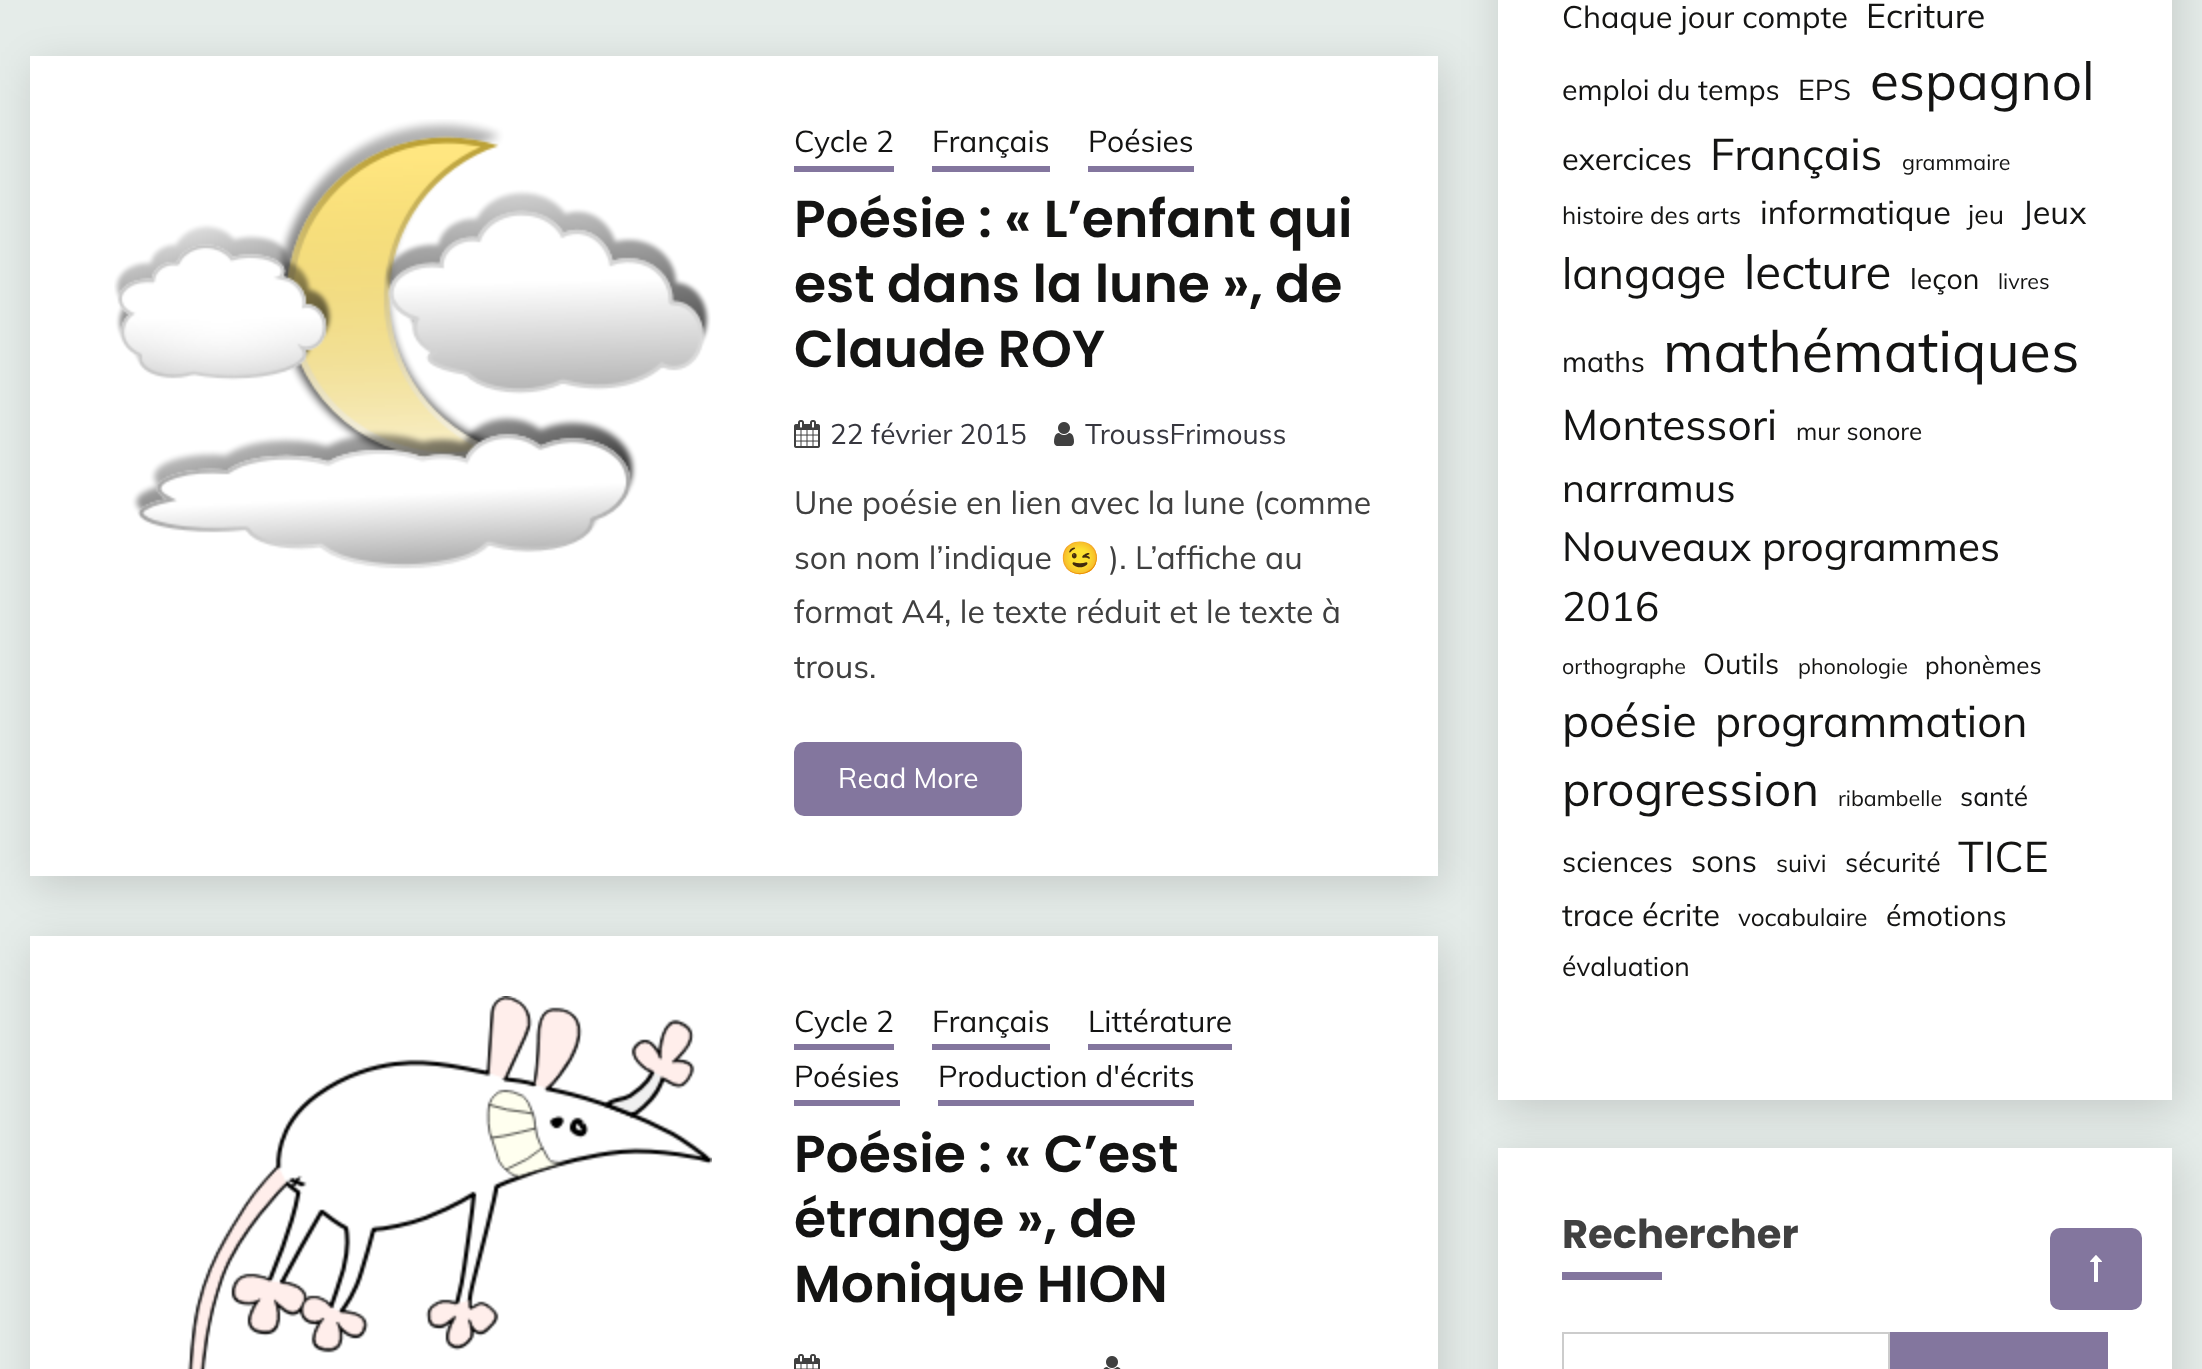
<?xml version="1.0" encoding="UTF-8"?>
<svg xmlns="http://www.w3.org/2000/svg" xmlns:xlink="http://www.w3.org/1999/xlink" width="2202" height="1369">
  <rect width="100%" height="100%" fill="#e5ece9" />
  <rect x="34" y="66" width="1408" height="820" fill="#000000" fill-opacity="0.14" filter="blur(20px)" />
  <rect x="30" y="56" width="1408" height="820" fill="#ffffff" />
  <image x="114" y="119" width="597" height="450" xlink:href="image1.png" />
  <rect x="794" y="166" width="100" height="6" fill="#83769e" />
  <rect x="932" y="166" width="118" height="6" fill="#83769e" />
  <rect x="1088" y="166" width="106" height="6" fill="#83769e" />
  <image x="794" y="420" width="26" height="28" xlink:href="image2.png" />
  <image x="1054" y="422" width="20" height="24" xlink:href="image3.png" />
  <rect x="794" y="742" width="228" height="74" rx="10" fill="#83769e" />
  <rect x="34" y="946" width="1408" height="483" fill="#000000" fill-opacity="0.14" filter="blur(20px)" />
  <rect x="30" y="936" width="1408" height="433" fill="#ffffff" />
  <image x="187" y="996" width="525" height="373" xlink:href="image4.png" />
  <rect x="794" y="1044" width="100" height="6" fill="#83769e" />
  <rect x="932" y="1044" width="118" height="6" fill="#83769e" />
  <rect x="1088" y="1044" width="144" height="6" fill="#83769e" />
  <rect x="794" y="1100" width="106" height="6" fill="#83769e" />
  <rect x="938" y="1100" width="256" height="6" fill="#83769e" />
  <image x="794" y="1354" width="26" height="15" xlink:href="image5.png" />
  <image x="1103" y="1356" width="18" height="13" xlink:href="image6.png" />
  <rect x="1502" y="-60" width="674" height="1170" fill="#000000" fill-opacity="0.14" filter="blur(20px)" />
  <rect x="1498" width="674" height="1100" fill="#ffffff" />
  <rect x="1502" y="1158" width="674" height="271" fill="#000000" fill-opacity="0.14" filter="blur(20px)" />
  <rect x="1498" y="1148" width="674" height="221" fill="#ffffff" />
  <rect x="1562" y="1272" width="100" height="8" fill="#83769e" />
  <rect x="1563" y="1333" width="326" height="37" fill="none" stroke="#cccccc" stroke-width="2" />
  <rect x="1890" y="1332" width="218" height="37" fill="#83769e" />
  <rect x="2050" y="1228" width="92" height="82" rx="10" fill="#83769e" />
  <image x="2090" y="1255" width="12" height="27" xlink:href="image7.png" />
  <text x="794" y="152" style="font-family: Muli; font-size: 30px; fill: #141413">Cycle 2</text>
  <text x="932" y="152" style="font-family: Muli; font-size: 30px; fill: #141413">Français</text>
  <text x="1088" y="152" style="font-family: Muli; font-size: 30px; fill: #141413">Poésies</text>
  <text x="794" y="237" style="font-family: Poppins; font-size: 52px; font-weight: 600; fill: #141413">Poésie : « L’enfant qui</text>
  <text x="794" y="302" style="font-family: Poppins; font-size: 52px; font-weight: 600; fill: #141413">est dans la lune », de</text>
  <text x="794" y="367" style="font-family: Poppins; font-size: 52px; font-weight: 600; fill: #141413">Claude ROY</text>
  <text x="830" y="444" style="font-family: Muli; font-size: 28px; fill: #37373f">22 février 2015</text>
  <text x="1085" y="444" style="font-family: Muli; font-size: 28px; fill: #37373f">TroussFrimouss</text>
  <text x="794" y="514" style="font-family: Muli; font-size: 32px; fill: #404040">Une poésie en lien avec la lune (comme</text>
  <text x="794" y="569" style="font-family: Muli; font-size: 32px; fill: #404040">son nom l’indique</text>
  <text x="1060" y="569" style="font-family: Noto Color Emoji; font-size: 32px; fill: #404040">😉</text>
  <text x="1109" y="569" style="font-family: Muli; font-size: 32px; fill: #404040">). L’affiche au</text>
  <text x="794" y="623" style="font-family: Muli; font-size: 32px; fill: #404040">format A4, le texte réduit et le texte à</text>
  <text x="794" y="678" style="font-family: Muli; font-size: 32px; fill: #404040">trous.</text>
  <text x="838" y="788" style="font-family: Muli; font-size: 28px; fill: #ffffff">Read More</text>
  <text x="794" y="1032" style="font-family: Muli; font-size: 30px; fill: #141413">Cycle 2</text>
  <text x="932" y="1032" style="font-family: Muli; font-size: 30px; fill: #141413">Français</text>
  <text x="1088" y="1032" style="font-family: Muli; font-size: 30px; fill: #141413">Littérature</text>
  <text x="794" y="1087" style="font-family: Muli; font-size: 30px; fill: #141413">Poésies</text>
  <text x="938" y="1087" style="font-family: Muli; font-size: 30px; fill: #141413">Production d'écrits</text>
  <text x="794" y="1172" style="font-family: Poppins; font-size: 52px; font-weight: 600; fill: #141413">Poésie : « C’est</text>
  <text x="794" y="1237" style="font-family: Poppins; font-size: 52px; font-weight: 600; fill: #141413">étrange », de</text>
  <text x="794" y="1302" style="font-family: Poppins; font-size: 52px; font-weight: 600; fill: #141413">Monique HION</text>
  <text x="1562" y="28" style="font-family: Muli; font-size: 30.75px; fill: #141413">Chaque jour compte</text>
  <text x="1866" y="28" style="font-family: Muli; font-size: 34px; fill: #141413">Ecriture</text>
  <text x="1562" y="100" style="font-family: Muli; font-size: 28.5px; fill: #141413">emploi du temps</text>
  <text x="1798" y="100" style="font-family: Muli; font-size: 28.5px; fill: #141413">EPS</text>
  <text x="1870" y="100" style="font-family: Muli; font-size: 53px; fill: #141413">espagnol</text>
  <text x="1562" y="170" style="font-family: Muli; font-size: 30.75px; fill: #141413">exercices</text>
  <text x="1710" y="170" style="font-family: Muli; font-size: 44px; fill: #141413">Français</text>
  <text x="1902" y="170" style="font-family: Muli; font-size: 21.5px; fill: #141413">grammaire</text>
  <text x="1562" y="224" style="font-family: Muli; font-size: 24.25px; fill: #141413">histoire des arts</text>
  <text x="1760" y="224" style="font-family: Muli; font-size: 32.5px; fill: #141413">informatique</text>
  <text x="1968" y="224" style="font-family: Muli; font-size: 26.5px; fill: #141413">jeu</text>
  <text x="2022" y="224" style="font-family: Muli; font-size: 32.5px; fill: #141413">Jeux</text>
  <text x="1562" y="289" style="font-family: Muli; font-size: 43.5px; fill: #141413">langage</text>
  <text x="1744" y="289" style="font-family: Muli; font-size: 47.5px; fill: #141413">lecture</text>
  <text x="1910" y="289" style="font-family: Muli; font-size: 28.5px; fill: #141413">leçon</text>
  <text x="1998" y="289" style="font-family: Muli; font-size: 21.5px; fill: #141413">livres</text>
  <text x="1562" y="372" style="font-family: Muli; font-size: 28.5px; fill: #141413">maths</text>
  <text x="1663" y="372" style="font-family: Muli; font-size: 57.5px; fill: #141413">mathématiques</text>
  <text x="1562" y="440" style="font-family: Muli; font-size: 42.5px; fill: #141413">Montessori</text>
  <text x="1796" y="440" style="font-family: Muli; font-size: 24.25px; fill: #141413">mur sonore</text>
  <text x="1562" y="502" style="font-family: Muli; font-size: 39px; fill: #141413">narramus</text>
  <text x="1562" y="561" style="font-family: Muli; font-size: 40.5px; fill: #141413">Nouveaux programmes</text>
  <text x="1562" y="621" style="font-family: Muli; font-size: 40.5px; fill: #141413">2016</text>
  <text x="1562" y="674" style="font-family: Muli; font-size: 21.5px; fill: #141413">orthographe</text>
  <text x="1703" y="674" style="font-family: Muli; font-size: 28.5px; fill: #141413">Outils</text>
  <text x="1798" y="674" style="font-family: Muli; font-size: 21.5px; fill: #141413">phonologie</text>
  <text x="1925" y="674" style="font-family: Muli; font-size: 24.25px; fill: #141413">phonèmes</text>
  <text x="1562" y="737" style="font-family: Muli; font-size: 45px; fill: #141413">poésie</text>
  <text x="1715" y="737" style="font-family: Muli; font-size: 43.5px; fill: #141413">programmation</text>
  <text x="1562" y="806" style="font-family: Muli; font-size: 47.5px; fill: #141413">progression</text>
  <text x="1838" y="806" style="font-family: Muli; font-size: 21.5px; fill: #141413">ribambelle</text>
  <text x="1960" y="806" style="font-family: Muli; font-size: 26.5px; fill: #141413">santé</text>
  <text x="1562" y="872" style="font-family: Muli; font-size: 28.5px; fill: #141413">sciences</text>
  <text x="1691" y="872" style="font-family: Muli; font-size: 30.75px; fill: #141413">sons</text>
  <text x="1776" y="872" style="font-family: Muli; font-size: 24.25px; fill: #141413">suivi</text>
  <text x="1845" y="872" style="font-family: Muli; font-size: 26.5px; fill: #141413">sécurité</text>
  <text x="1958" y="872" style="font-family: Muli; font-size: 42.5px; fill: #141413">TICE</text>
  <text x="1562" y="926" style="font-family: Muli; font-size: 30.75px; fill: #141413">trace écrite</text>
  <text x="1738" y="926" style="font-family: Muli; font-size: 24.25px; fill: #141413">vocabulaire</text>
  <text x="1886" y="926" style="font-family: Muli; font-size: 28.5px; fill: #141413">émotions</text>
  <text x="1562" y="976" style="font-family: Muli; font-size: 26.5px; fill: #141413">évaluation</text>
  <text x="1562" y="1248" style="font-family: Poppins; font-size: 40px; font-weight: bold; fill: #404040">Rechercher</text>
</svg>
